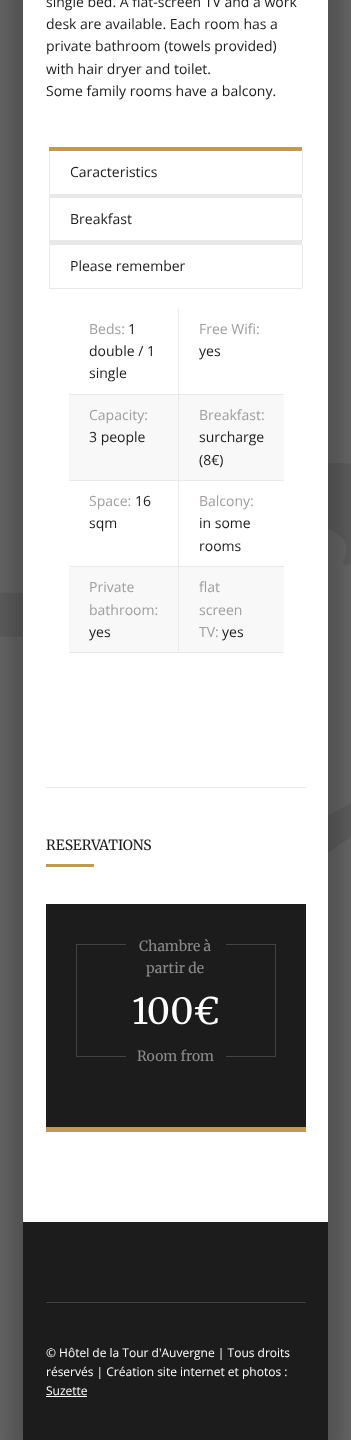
<?xml version="1.0" encoding="UTF-8"?>
<svg xmlns="http://www.w3.org/2000/svg" xmlns:xlink="http://www.w3.org/1999/xlink" width="351" height="1440">
  <rect width="100%" height="100%" fill="#666666" />
  <image x="0" y="463" width="351" height="390" xlink:href="image1.png" />
  <rect x="8" y="-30" width="335" height="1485" fill="#000000" fill-opacity="0.2" filter="blur(10px)" />
  <rect x="23" width="305" height="1222" fill="#ffffff" />
  <rect x="49" y="147" width="253" height="4" fill="#bf9958" />
  <rect x="302" y="151" width="1" height="42" fill="#e8e8e8" />
  <rect x="49" y="151" width="1" height="42" fill="#e8e8e8" />
  <rect x="49" y="194" width="253" height="4" fill="#e8e8e8" />
  <rect x="49" y="240" width="253" height="5" fill="#e8e8e8" />
  <rect x="302" y="198" width="1" height="42" fill="#e8e8e8" />
  <rect x="49" y="198" width="1" height="42" fill="#e8e8e8" />
  <rect x="49" y="288" width="253" height="1" fill="#e8e8e8" />
  <rect x="302" y="245" width="1" height="43" fill="#e8e8e8" />
  <rect x="49" y="245" width="1" height="43" fill="#e8e8e8" />
  <rect x="178" y="309" width="1" height="86" fill="#e9e9e9" />
  <rect x="69" y="394" width="215" height="1" fill="#e9e9e9" />
  <rect x="69" y="395" width="215" height="85" fill="#f8f8f8" />
  <rect x="178" y="395" width="1" height="172" fill="#e9e9e9" />
  <rect x="69" y="480" width="215" height="1" fill="#e9e9e9" />
  <rect x="69" y="566" width="215" height="1" fill="#e9e9e9" />
  <rect x="69" y="567" width="215" height="85" fill="#f8f8f8" />
  <rect x="178" y="567" width="1" height="86" fill="#e9e9e9" />
  <rect x="69" y="652" width="215" height="1" fill="#e9e9e9" />
  <rect x="46" y="787" width="260" height="1" fill="#e8e8e8" />
  <rect x="46" y="864" width="48" height="3" fill="#bf9958" />
  <rect x="46" y="904" width="260" height="223" fill="#1c1c1c" />
  <rect x="46" y="1127" width="260" height="5" fill="#bf9958" />
  <rect x="76.5" y="944.5" width="199" height="112" fill="none" stroke="#424242" />
  <rect x="126" y="944" width="100" height="1" fill="#1c1c1c" />
  <rect x="126" y="1056" width="100" height="1" fill="#1c1c1c" />
  <rect x="23" y="1222" width="305" height="218" fill="#1c1c1c" />
  <rect x="46" y="1302" width="260" height="1" fill="#424242" />
  <rect x="46" y="1396" width="41" height="1" fill="#ffffff" />
  <text x="46" y="7" style="font-family: Open Sans; font-size: 14px; fill: #1c1c1c">single bed. A flat-screen TV and a work</text>
  <text x="46" y="29" style="font-family: Open Sans; font-size: 14px; fill: #1c1c1c">desk are available. Each room has a</text>
  <text x="46" y="51" style="font-family: Open Sans; font-size: 14px; fill: #1c1c1c">private bathroom (towels provided)</text>
  <text x="46" y="74" style="font-family: Open Sans; font-size: 14px; fill: #1c1c1c">with hair dryer and toilet.</text>
  <text x="46" y="96" style="font-family: Open Sans; font-size: 14px; fill: #1c1c1c">Some family rooms have a balcony.</text>
  <text x="70" y="177" style="font-family: Open Sans; font-size: 14px; fill: #1c1c1c">Caracteristics</text>
  <text x="70" y="224" style="font-family: Open Sans; font-size: 14px; fill: #1c1c1c">Breakfast</text>
  <text x="70" y="271" style="font-family: Open Sans; font-size: 14px; fill: #1c1c1c">Please remember</text>
  <text x="89" y="334" style="font-family: Open Sans; font-size: 14px; fill: #a09d9d">Beds:</text>
  <text x="128" y="334" style="font-family: Open Sans; font-size: 14px; fill: #1c1c1c">1</text>
  <text x="89" y="356" style="font-family: Open Sans; font-size: 14px; fill: #1c1c1c">double / 1</text>
  <text x="89" y="378" style="font-family: Open Sans; font-size: 14px; fill: #1c1c1c">single</text>
  <text x="199" y="334" style="font-family: Open Sans; font-size: 14px; fill: #a09d9d">Free Wifi:</text>
  <text x="199" y="356" style="font-family: Open Sans; font-size: 14px; fill: #1c1c1c">yes</text>
  <text x="89" y="420" style="font-family: Open Sans; font-size: 14px; fill: #a09d9d">Capacity:</text>
  <text x="89" y="442" style="font-family: Open Sans; font-size: 14px; fill: #1c1c1c">3 people</text>
  <text x="199" y="420" style="font-family: Open Sans; font-size: 14px; fill: #a09d9d">Breakfast:</text>
  <text x="199" y="442" style="font-family: Open Sans; font-size: 14px; fill: #1c1c1c">surcharge</text>
  <text x="199" y="465" style="font-family: Open Sans; font-size: 14px; fill: #1c1c1c">(8€)</text>
  <text x="89" y="506" style="font-family: Open Sans; font-size: 14px; fill: #a09d9d">Space:</text>
  <text x="135" y="506" style="font-family: Open Sans; font-size: 14px; fill: #1c1c1c">16</text>
  <text x="89" y="528" style="font-family: Open Sans; font-size: 14px; fill: #1c1c1c">sqm</text>
  <text x="199" y="506" style="font-family: Open Sans; font-size: 14px; fill: #a09d9d">Balcony:</text>
  <text x="199" y="528" style="font-family: Open Sans; font-size: 14px; fill: #1c1c1c">in some</text>
  <text x="199" y="551" style="font-family: Open Sans; font-size: 14px; fill: #1c1c1c">rooms</text>
  <text x="89" y="592" style="font-family: Open Sans; font-size: 14px; fill: #a09d9d">Private</text>
  <text x="89" y="615" style="font-family: Open Sans; font-size: 14px; fill: #a09d9d">bathroom:</text>
  <text x="89" y="637" style="font-family: Open Sans; font-size: 14px; fill: #1c1c1c">yes</text>
  <text x="199" y="592" style="font-family: Open Sans; font-size: 14px; fill: #a09d9d">flat</text>
  <text x="199" y="615" style="font-family: Open Sans; font-size: 14px; fill: #a09d9d">screen</text>
  <text x="199" y="637" style="font-family: Open Sans; font-size: 14px; fill: #a09d9d">TV:</text>
  <text x="222" y="637" style="font-family: Open Sans; font-size: 14px; fill: #1c1c1c">yes</text>
  <text x="46" y="850" style="font-family: Merriweather; font-size: 14px; fill: #1c1c1c">RESERVATIONS</text>
  <text x="139" y="951" style="font-family: Merriweather; font-size: 14px; fill: #8b8b8b">Chambre à</text>
  <text x="146" y="973" style="font-family: Merriweather; font-size: 14px; fill: #8b8b8b">partir de</text>
  <text x="132" y="1024" style="font-family: Merriweather; font-size: 36px; fill: #ffffff">100€</text>
  <text x="137" y="1061" style="font-family: Merriweather; font-size: 14px; fill: #8b8b8b">Room from</text>
  <text x="46" y="1357" style="font-family: Open Sans; font-size: 12px; fill: #ffffff">© Hôtel de la Tour d'Auvergne | Tous droits</text>
  <text x="46" y="1376" style="font-family: Open Sans; font-size: 12px; fill: #ffffff">réservés | Création site internet et photos :</text>
  <text x="46" y="1395" style="font-family: Open Sans; font-size: 12px; fill: #ffffff">Suzette</text>
</svg>
